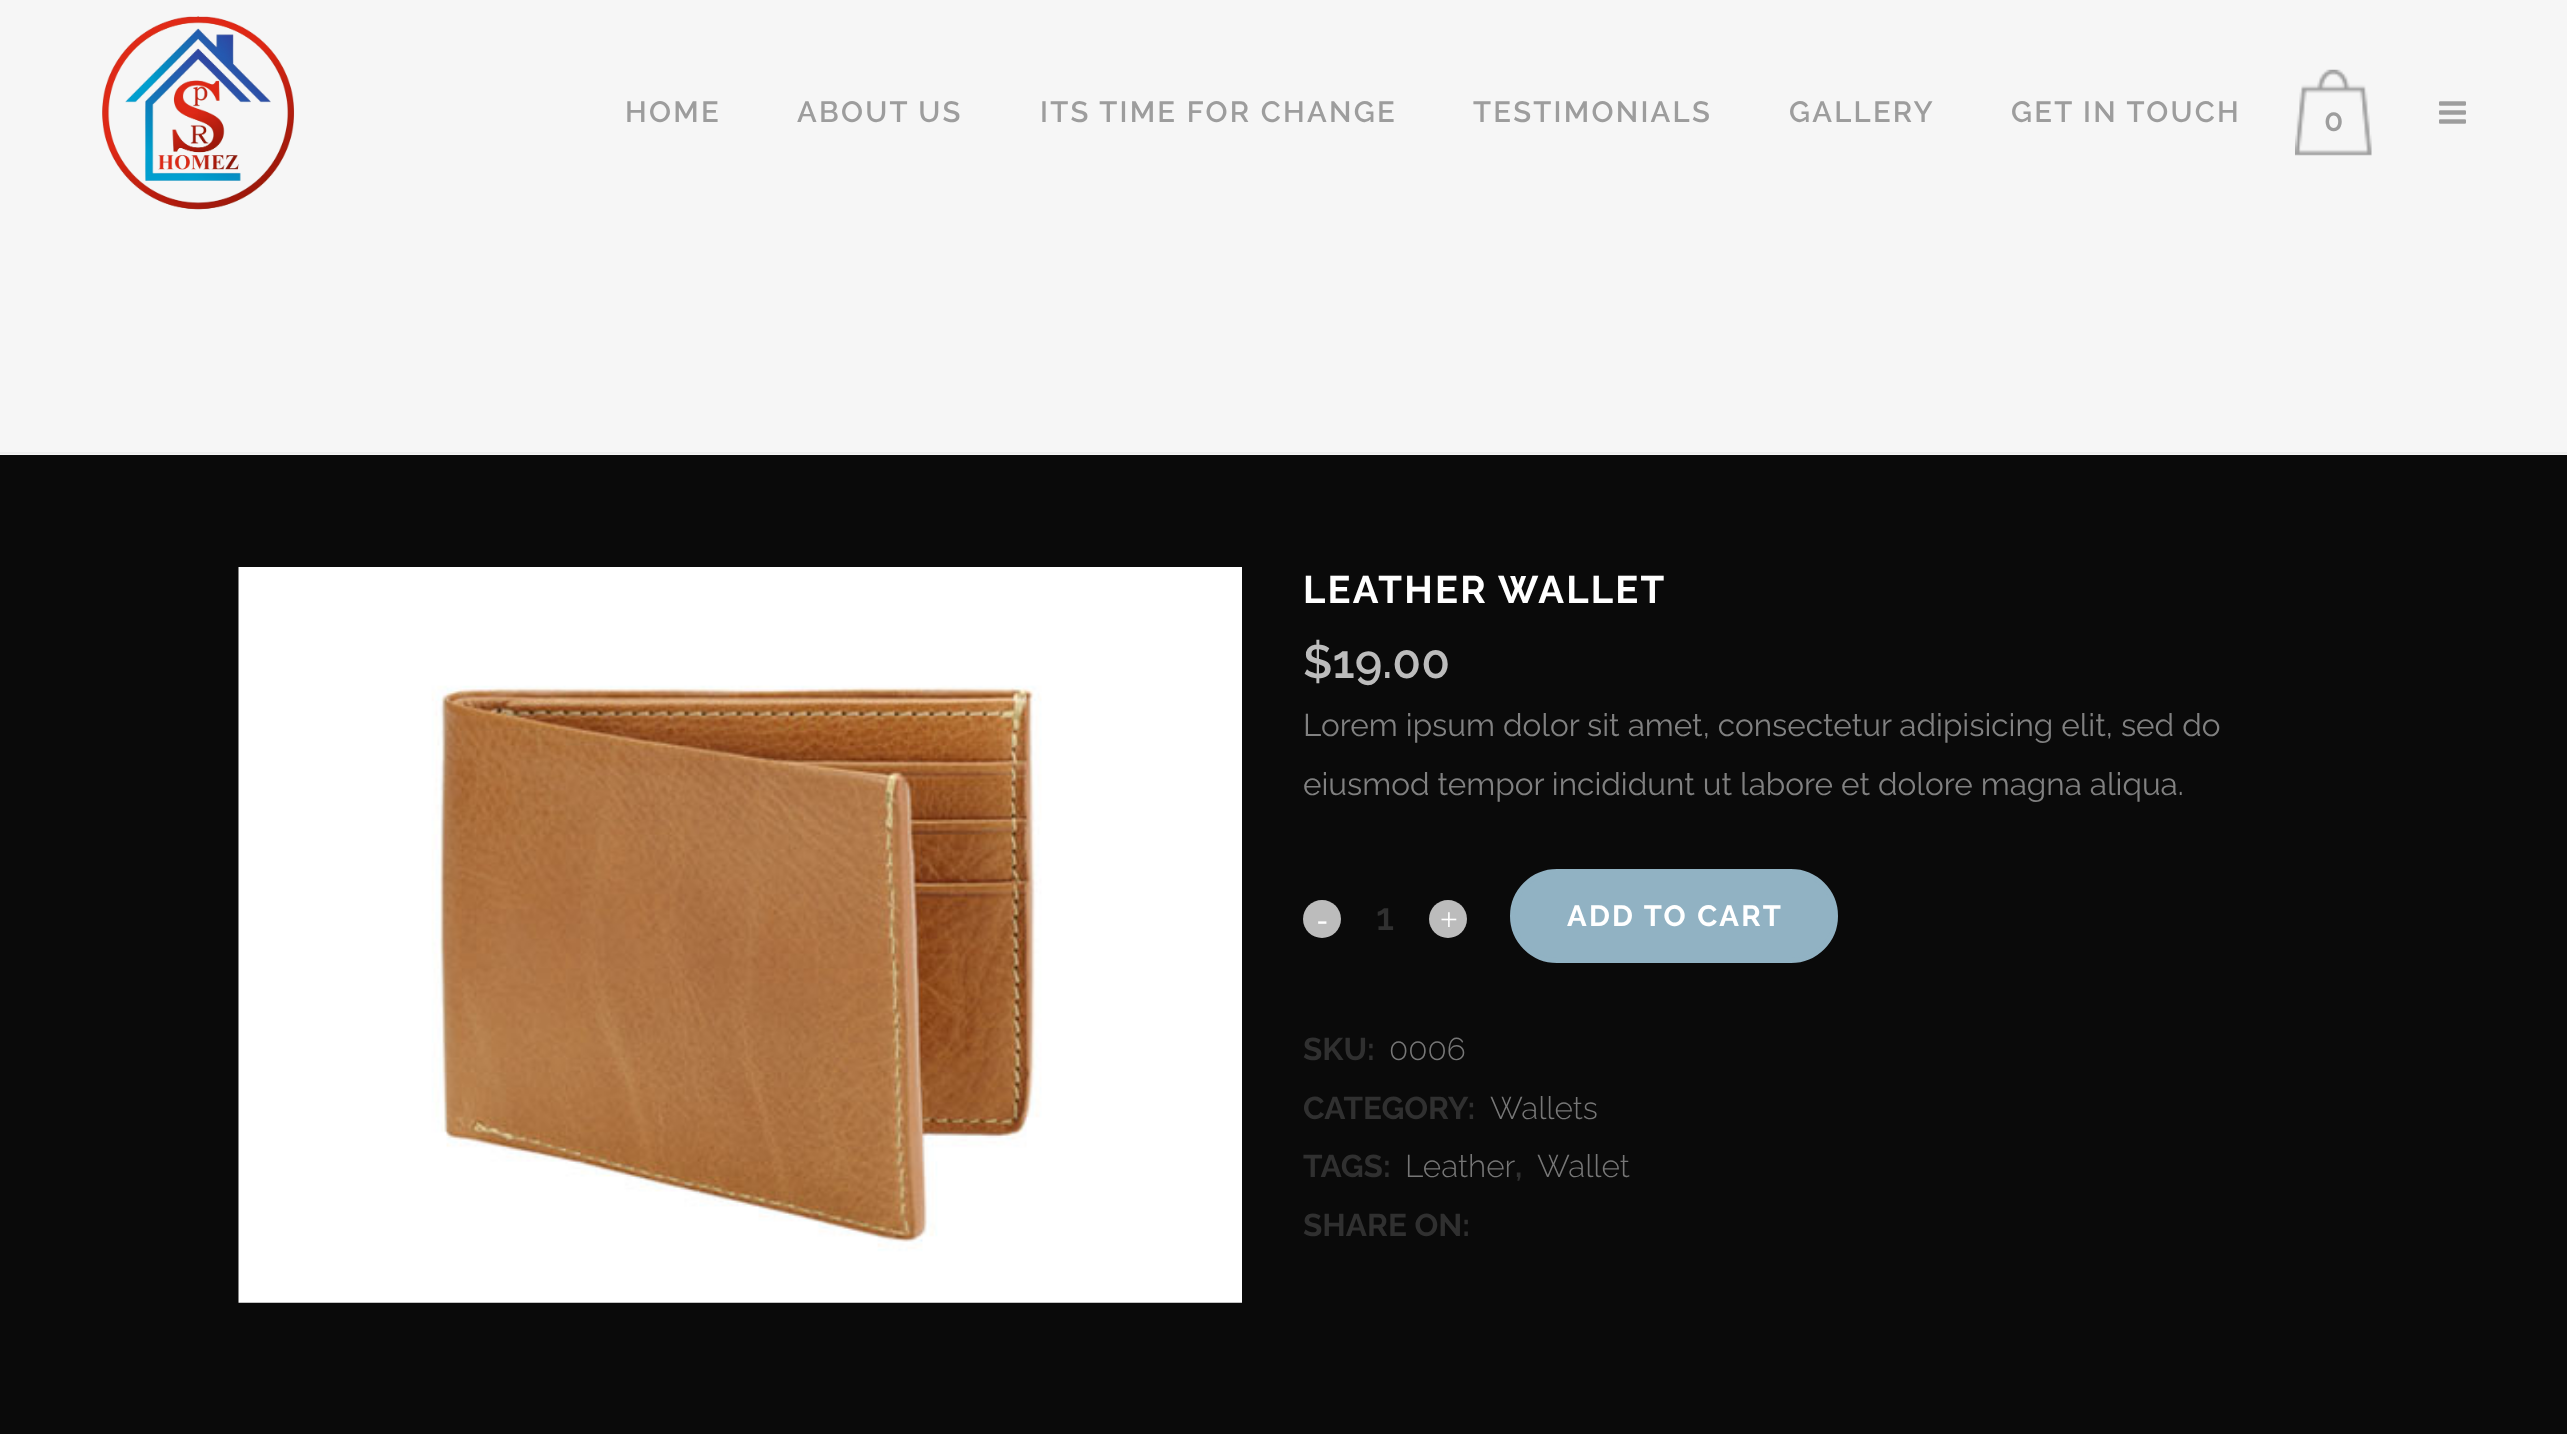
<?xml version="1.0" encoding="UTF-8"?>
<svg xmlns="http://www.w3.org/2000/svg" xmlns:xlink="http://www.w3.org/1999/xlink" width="2567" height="1434">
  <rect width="100%" height="100%" fill="#0a0a0a" />
  <rect width="2567" height="455" fill="#f6f6f6" />
  <image x="102" y="16" width="193" height="194" xlink:href="image1.png" />
  <image x="2295" y="69" width="77" height="87" xlink:href="image2.png" />
  <image x="2439" y="101" width="27" height="23" xlink:href="image3.png" />
  <rect y="452" width="2567" height="2" fill="#eeeeee" />
  <image x="238" y="567" width="1004" height="736" xlink:href="image4.png" />
  <circle cx="1322" cy="919" r="19" fill="#bcbcbc" />
  <circle cx="1448" cy="919" r="19" fill="#bcbcbc" />
  <rect x="1512.5" y="871.5" width="323" height="89" rx="44.5" fill="#91b2c3" stroke="#91b2c3" stroke-width="5" />
  <text x="625" y="122" style="font-family: Raleway; font-size: 29.25px; font-weight: 600; letter-spacing: 2.25px; fill: #9d9d9d">HOME</text>
  <text x="797" y="122" style="font-family: Raleway; font-size: 29.25px; font-weight: 600; letter-spacing: 2.25px; fill: #9d9d9d">ABOUT US</text>
  <text x="1040" y="122" style="font-family: Raleway; font-size: 29.25px; font-weight: 600; letter-spacing: 2.25px; fill: #9d9d9d">ITS TIME FOR CHANGE</text>
  <text x="1473" y="122" style="font-family: Raleway; font-size: 29.25px; font-weight: 600; letter-spacing: 2.25px; fill: #9d9d9d">TESTIMONIALS</text>
  <text x="1789" y="122" style="font-family: Raleway; font-size: 29.25px; font-weight: 600; letter-spacing: 2.25px; fill: #9d9d9d">GALLERY</text>
  <text x="2011" y="122" style="font-family: Raleway; font-size: 29.25px; font-weight: 600; letter-spacing: 2.25px; fill: #9d9d9d">GET IN TOUCH</text>
  <text x="2324" y="131" style="font-family: Raleway; font-size: 31.5px; font-weight: 600; fill: #9d9d9d">0</text>
  <text x="1303" y="603" style="font-family: Raleway; font-size: 38.25px; font-weight: bold; letter-spacing: 2.25px; fill: #ffffff">LEATHER WALLET</text>
  <text x="1303" y="678" style="font-family: Raleway; font-size: 47px; font-weight: 600; fill: #bcbcbc">$19.00</text>
  <text x="1303" y="736" style="font-family: Raleway; font-size: 31.5px; fill: #818181">Lorem ipsum dolor sit amet, consectetur adipisicing elit, sed do</text>
  <text x="1303" y="795" style="font-family: Raleway; font-size: 31.5px; fill: #818181">eiusmod tempor incididunt ut labore et dolore magna aliqua.</text>
  <text x="1317" y="930" style="font-family: Liberation Serif; font-size: 31.5px; fill: #ffffff">-</text>
  <text x="1376" y="930" style="font-family: Raleway; font-size: 38.25px; font-weight: 600; fill: #303030">1</text>
  <text x="1440" y="930" style="font-family: Liberation Serif; font-size: 31.5px; fill: #ffffff">+</text>
  <text x="1567" y="926" style="font-family: Raleway; font-size: 29.25px; font-weight: bold; letter-spacing: 2.25px; fill: #ffffff">ADD TO CART</text>
  <text x="1303" y="1060" style="font-family: Raleway; font-size: 31.5px; font-weight: bold; fill: #303030">SKU:</text>
  <text x="1389" y="1060" style="font-family: Raleway; font-size: 31.5px; font-weight: 300; fill: #777777">0006</text>
  <text x="1303" y="1119" style="font-family: Raleway; font-size: 31.5px; font-weight: bold; fill: #303030">CATEGORY:</text>
  <text x="1490" y="1119" style="font-family: Raleway; font-size: 31.5px; font-weight: 300; fill: #777777">Wallets</text>
  <text x="1303" y="1177" style="font-family: Raleway; font-size: 31.5px; font-weight: bold; fill: #303030">TAGS:</text>
  <text x="1405" y="1177" style="font-family: Raleway; font-size: 31.5px; font-weight: 300; fill: #777777">Leather</text>
  <text x="1515" y="1177" style="font-family: Raleway; font-size: 31.5px; font-weight: bold; fill: #303030">,</text>
  <text x="1537" y="1177" style="font-family: Raleway; font-size: 31.5px; font-weight: 300; fill: #777777">Wallet</text>
  <text x="1303" y="1236" style="font-family: Raleway; font-size: 31.5px; font-weight: bold; fill: #303030">SHARE ON:</text>
</svg>
